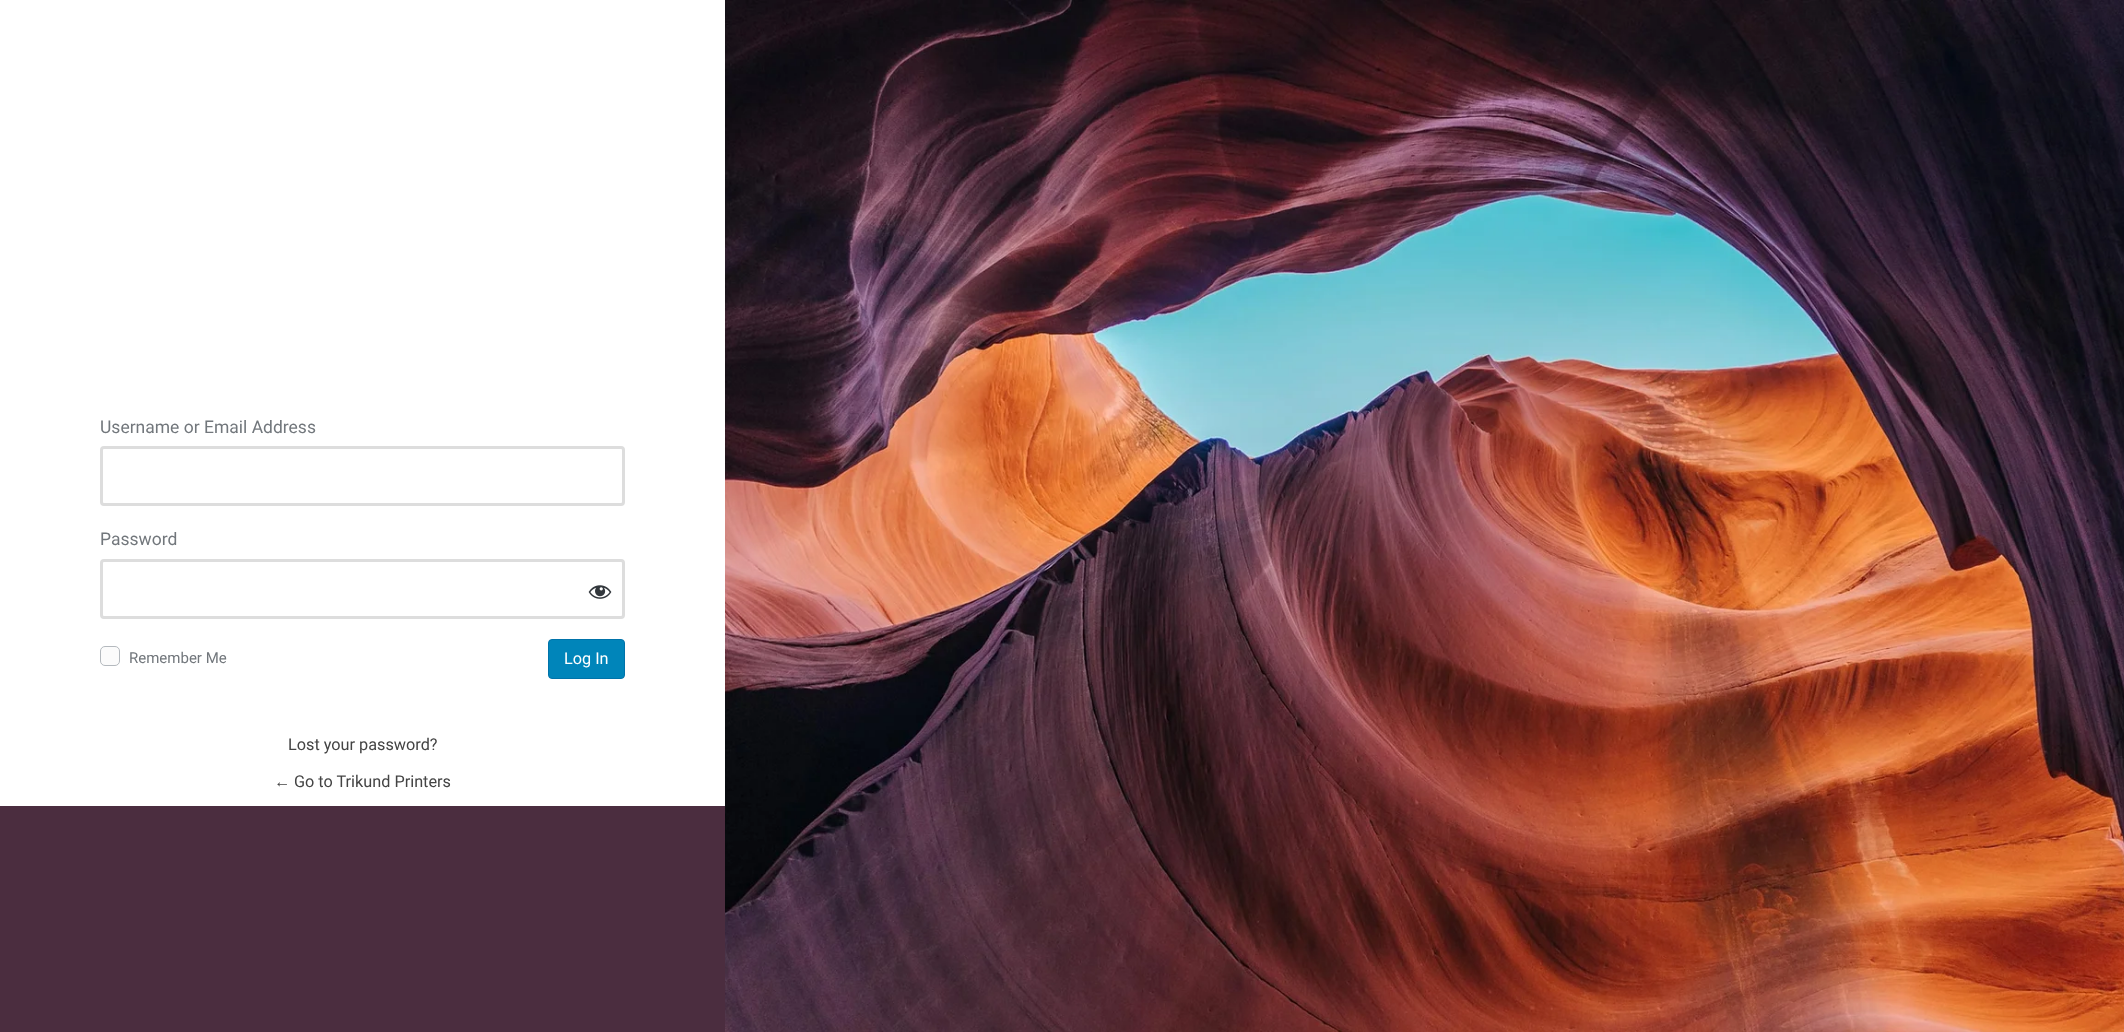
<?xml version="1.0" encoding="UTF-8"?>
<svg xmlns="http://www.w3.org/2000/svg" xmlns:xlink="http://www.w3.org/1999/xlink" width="2124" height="1032">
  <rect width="100%" height="100%" fill="#4b2d3f" />
  <rect width="725" height="806" fill="#ffffff" />
  <rect x="101.5" y="447.5" width="522" height="57" rx="2.5" fill="none" stroke="#dddddd" stroke-width="3" />
  <rect x="101.5" y="560.5" width="522" height="57" rx="2.5" fill="none" stroke="#dddddd" stroke-width="3" />
  <image x="588" y="585" width="24" height="14" xlink:href="image1.png" />
  <rect x="100.5" y="646.5" width="19" height="19" rx="4.5" fill="#fbfbfb" stroke="#b4b9be" />
  <rect x="548.5" y="639.5" width="76" height="39" rx="3.5" fill="#0085ba" stroke="#0073aa" />
  <image x="725" y="0" width="1399" height="1032" xlink:href="image2.png" />
  <text x="100" y="433" style="font-family: Roboto; font-size: 17.5px; fill: #72777c">Username or Email Address</text>
  <text x="100" y="545" style="font-family: Roboto; font-size: 17.5px; fill: #72777c">Password</text>
  <text x="129" y="663" style="font-family: Roboto; font-size: 15px; fill: #72777c">Remember Me</text>
  <text x="564" y="664" style="font-family: Roboto; font-size: 16.25px; fill: #ffffff">Log In</text>
  <text x="288" y="750" style="font-family: Roboto; font-size: 16.25px; fill: #444444">Lost your password?</text>
  <text x="274" y="787" style="font-family: Liberation Sans; font-size: 16.25px; fill: #444444">←</text>
  <text x="294" y="787" style="font-family: Roboto; font-size: 16.25px; fill: #444444">Go to Trikund Printers</text>
</svg>
